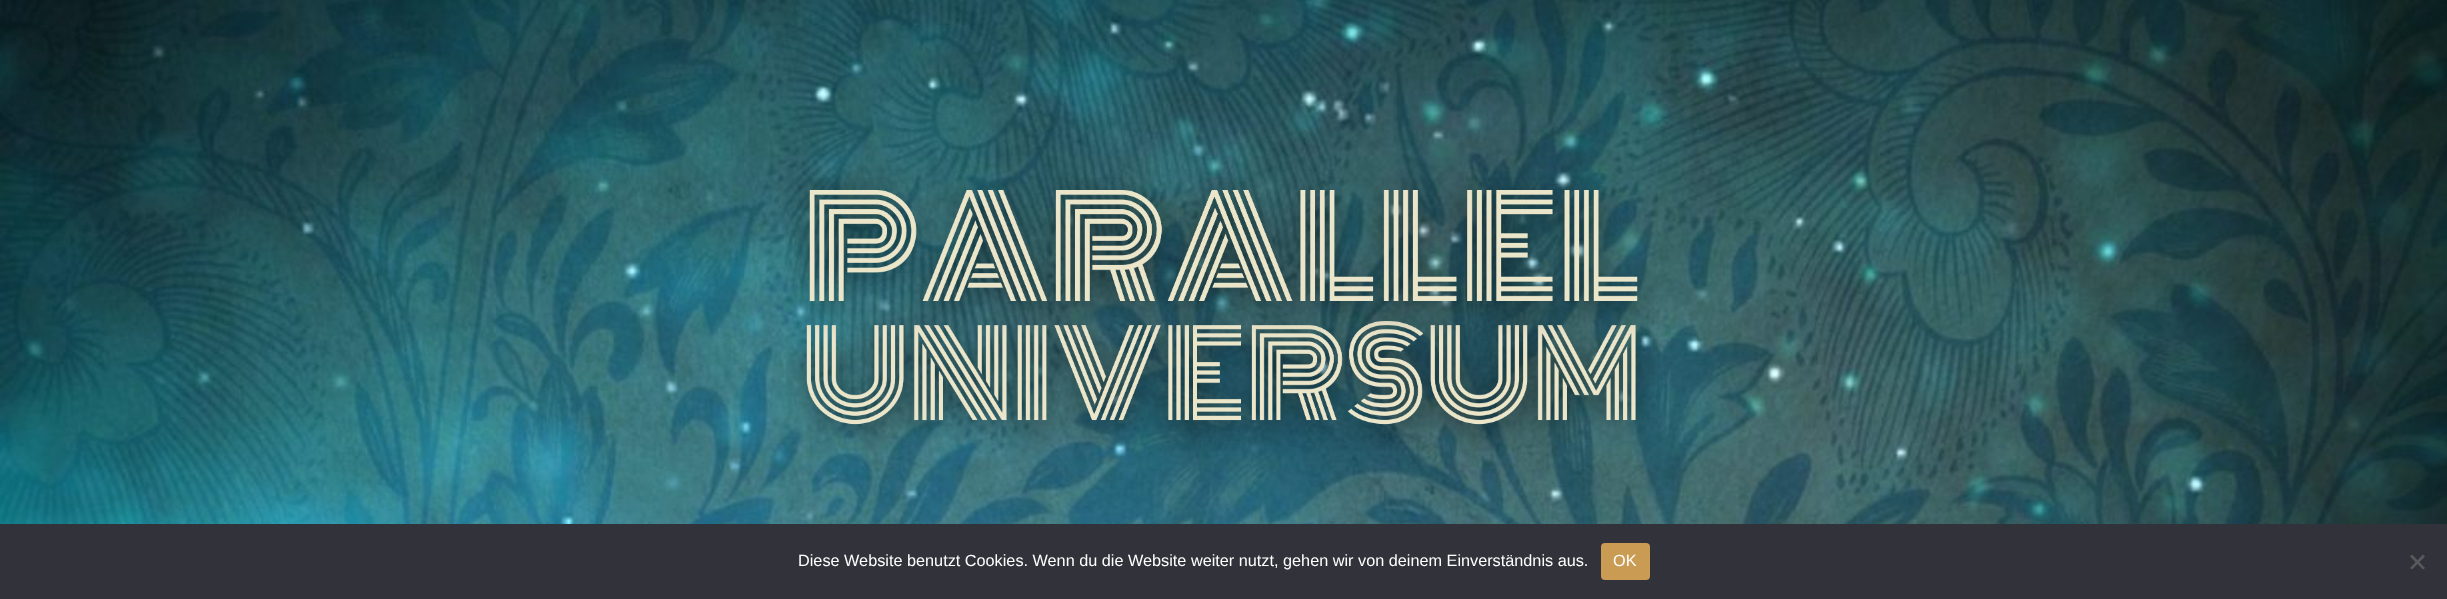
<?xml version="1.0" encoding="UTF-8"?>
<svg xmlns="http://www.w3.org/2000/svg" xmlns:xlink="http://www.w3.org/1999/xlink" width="2447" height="599">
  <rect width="100%" height="100%" fill="#ffffff" />
  <image x="0" y="0" width="2447" height="524" xlink:href="image1.png" />
  <image x="786" y="177" width="869" height="274" xlink:href="image2.png" />
  <rect y="524" width="2447" height="75" fill="#32323a" />
  <rect x="1601" y="543" width="49" height="37" rx="4" fill="#ca9b52" />
  <path d="M 2423 554.5 l 2 2 l -13 13 l -2 -1.5 z" fill="#59595d" />
  <path d="M 2410 556.5 l 2 -2 l 13 13.5 l -2 1.5 z" fill="#59595d" />
  <text x="798" y="566" style="font-family: Liberation Sans; font-size: 16.25px; fill: #ffffff">Diese Website benutzt Cookies. Wenn du die Website weiter nutzt, gehen wir von deinem Einverständnis aus.</text>
  <text x="1613" y="566" style="font-family: Liberation Sans; font-size: 16.25px; fill: #ffffff">OK</text>
</svg>
